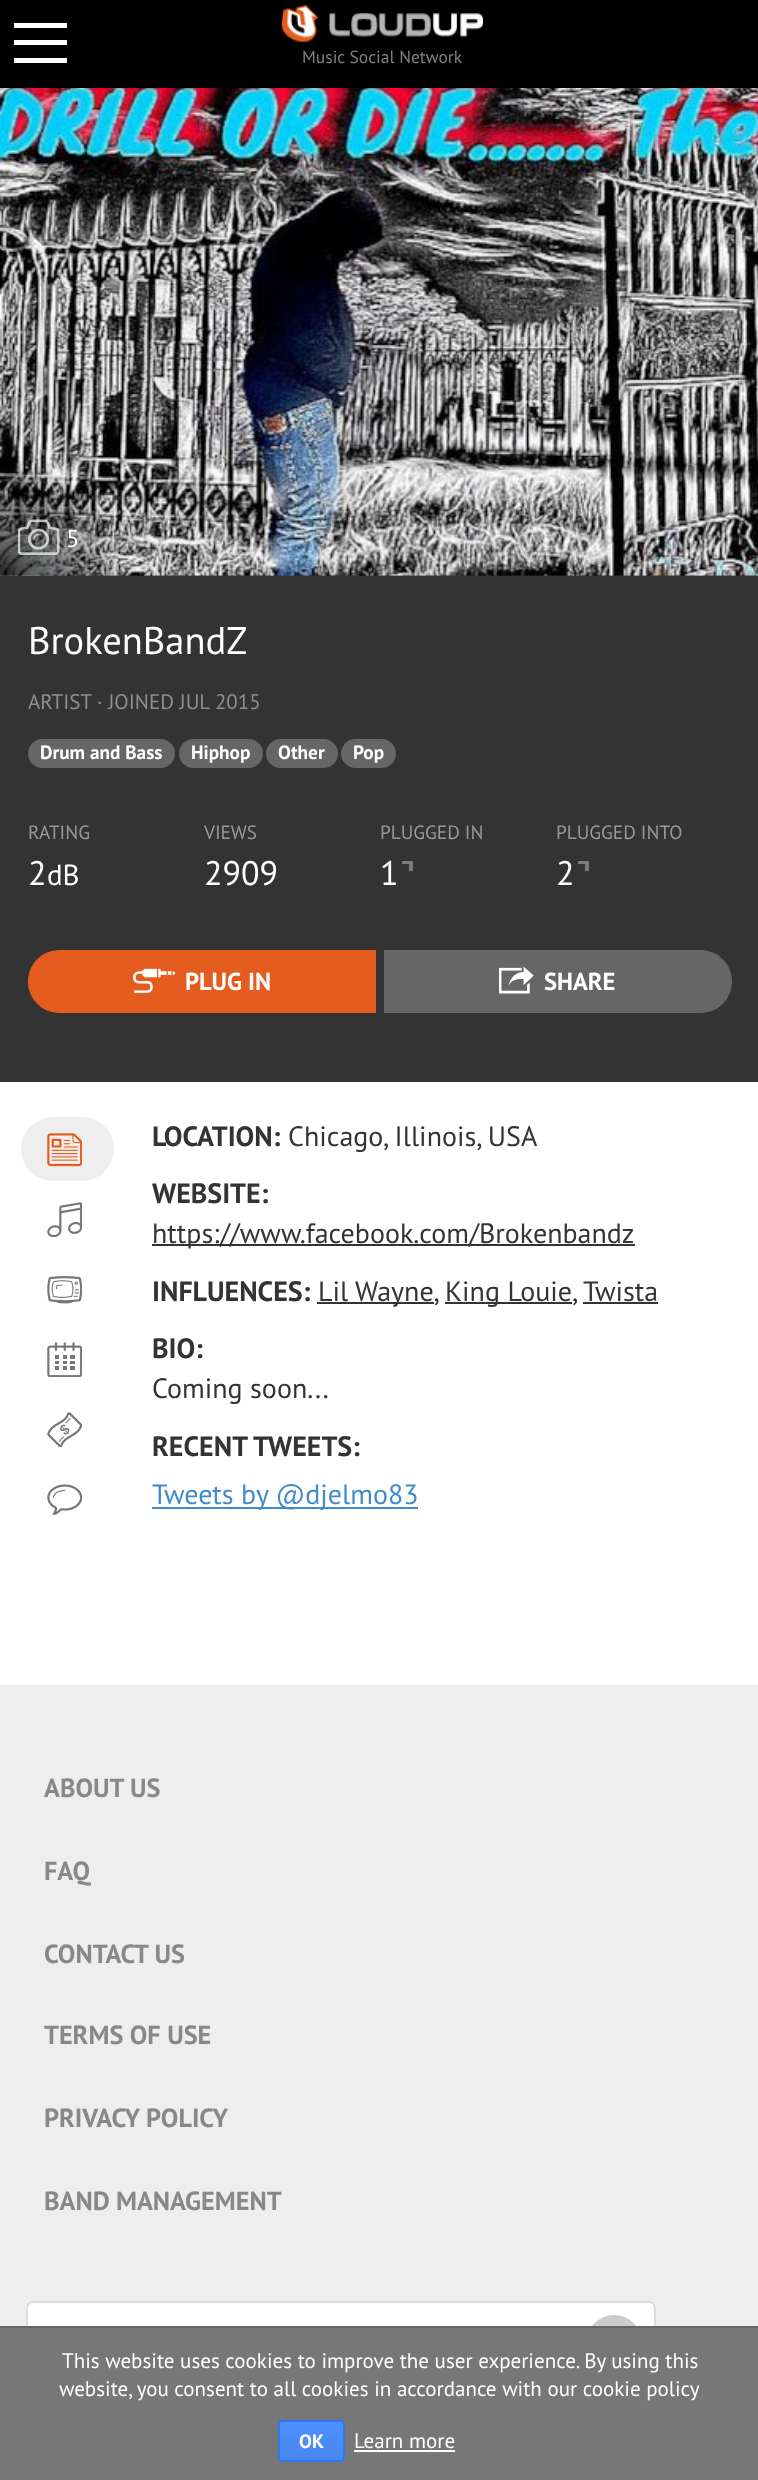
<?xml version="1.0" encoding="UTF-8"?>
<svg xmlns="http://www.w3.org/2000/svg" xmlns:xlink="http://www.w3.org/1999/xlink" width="758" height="2480">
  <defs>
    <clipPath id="clip1"><rect x="278" y="2420" width="67" height="42" rx="4" /></clipPath>
    <linearGradient id="g1" gradientUnits="userSpaceOnUse" x1="312" y1="2422" x2="312" y2="2461"><stop offset="0" stop-color="#4d90fe" /><stop offset="1" stop-color="#4787ed" /></linearGradient>
  </defs>
  <rect width="100%" height="100%" fill="#eeeeee" />
  <rect width="758" height="88" fill="#000000" />
  <rect x="14" y="23" width="53" height="5" fill="#ffffff" />
  <rect x="14" y="40" width="53" height="5" fill="#ffffff" />
  <rect x="14" y="58" width="53" height="5" fill="#ffffff" />
  <image x="281" y="5" width="202" height="37" xlink:href="image1.png" />
  <rect y="575" width="758" height="507" fill="#333333" />
  <image x="0" y="88" width="758" height="488" xlink:href="image2.png" />
  <image x="0" y="461" width="117" height="115" xlink:href="image3.png" />
  <image x="18" y="519" width="42" height="36" xlink:href="image4.png" />
  <rect x="28" y="739" width="147" height="29" rx="14.5" fill="#666666" />
  <rect x="179" y="739" width="84" height="29" rx="14.5" fill="#666666" />
  <rect x="266" y="739" width="72" height="29" rx="14.5" fill="#666666" />
  <rect x="341" y="739" width="55" height="29" rx="14.5" fill="#666666" />
  <rect x="402" y="861" width="11" height="3" fill="#7a7a7a" />
  <rect x="409" y="861" width="4" height="10" fill="#7a7a7a" />
  <rect x="578" y="861" width="11" height="3" fill="#7a7a7a" />
  <rect x="585" y="861" width="4" height="10" fill="#7a7a7a" />
  <path d="M 59.5 950 h 320.5 v 63 h -320.5 c -17.5 0 -31.5 -14 -31.5 -31.5 c 0 -17.5 14 -31.5 31.5 -31.5 z" fill="#e55d1e" />
  <rect x="376" y="950" width="4" height="63" fill="#333333" />
  <image x="133" y="968" width="42" height="25" xlink:href="image5.png" />
  <path d="M 380 950 h 320.5 c 17.5 0 31.5 14 31.5 31.5 c 0 17.5 -14 31.5 -31.5 31.5 h -320.5 z" fill="#666666" />
  <rect x="380" y="950" width="4" height="63" fill="#333333" />
  <image x="499" y="966" width="35" height="28" xlink:href="image6.png" />
  <rect y="1082" width="758" height="603" fill="#ffffff" />
  <rect x="21" y="1117" width="93" height="64" rx="32" fill="#eeeeee" />
  <image x="47" y="1133" width="35" height="34" xlink:href="image7.png" />
  <image x="47" y="1202" width="35" height="35" xlink:href="image8.png" />
  <image x="47" y="1276" width="35" height="28" xlink:href="image9.png" />
  <image x="47" y="1342" width="35" height="35" xlink:href="image10.png" />
  <image x="47" y="1412" width="35" height="35" xlink:href="image11.png" />
  <image x="47" y="1484" width="35" height="31" xlink:href="image12.png" />
  <rect x="152" y="1244" width="483" height="2" fill="#333333" />
  <rect x="317" y="1302" width="117" height="2" fill="#333333" />
  <rect x="445" y="1302" width="127" height="2" fill="#333333" />
  <rect x="583" y="1302" width="75" height="2" fill="#333333" />
  <rect x="152" y="1507" width="266" height="2" fill="#428bca" />
  <rect x="27" y="2302" width="628" height="82" rx="6" fill="#ffffff" stroke="#dddddd" stroke-width="2" />
  <circle cx="614" cy="2343" r="28" fill="#cccccc" />
  <rect y="2328" width="758" height="152" fill="#777777" />
  <rect y="2326" width="758" height="2" fill="#666666" />
  <g clip-path="url(#clip1)">
    <rect x="278" y="2422" width="67" height="39" fill="url(#g1)" />
  </g>
  <rect x="279" y="2421" width="65" height="40" rx="3" fill="none" stroke="#3079ed" stroke-width="2" />
  <rect x="354" y="2450" width="101" height="2" fill="#ffffff" />
  <text x="302" y="63" style="font-family: PT Sans; font-size: 17.5px; fill: #808080">Music Social Network</text>
  <text x="66" y="547" style="font-family: PT Sans; font-size: 24.5px; fill: #ffffff">5</text>
  <text x="28" y="654" style="font-family: PT Sans; font-size: 38.5px; fill: #ffffff">BrokenBandZ</text>
  <text x="28" y="709" style="font-family: PT Sans; font-size: 21px; fill: #8f8f8f">ARTIST</text>
  <text x="97" y="709" style="font-family: PT Sans; font-size: 21px; fill: #8f8f8f">· JOINED JUL 2015</text>
  <text x="40" y="759" style="font-family: PT Sans; font-size: 19.25px; font-weight: bold; fill: #ffffff">Drum and Bass</text>
  <text x="191" y="759" style="font-family: PT Sans; font-size: 19.25px; font-weight: bold; fill: #ffffff">Hiphop</text>
  <text x="278" y="759" style="font-family: PT Sans; font-size: 19.25px; font-weight: bold; fill: #ffffff">Other</text>
  <text x="353" y="759" style="font-family: PT Sans; font-size: 19.25px; font-weight: bold; fill: #ffffff">Pop</text>
  <text x="28" y="839" style="font-family: PT Sans; font-size: 19.25px; fill: #999999">RATING</text>
  <text x="28" y="885" style="font-family: PT Sans; font-size: 34px; fill: #ffffff">2</text>
  <text x="47" y="885" style="font-family: PT Sans; font-size: 29px; fill: #ffffff">dB</text>
  <text x="204" y="839" style="font-family: PT Sans; font-size: 19.25px; fill: #999999">VIEWS</text>
  <text x="204" y="885" style="font-family: PT Sans; font-size: 34px; fill: #ffffff">2909</text>
  <text x="380" y="839" style="font-family: PT Sans; font-size: 19.25px; fill: #999999">PLUGGED IN</text>
  <text x="380" y="885" style="font-family: PT Sans; font-size: 34px; fill: #ffffff">1</text>
  <text x="556" y="839" style="font-family: PT Sans; font-size: 19.25px; fill: #999999">PLUGGED INTO</text>
  <text x="556" y="885" style="font-family: PT Sans; font-size: 34px; fill: #ffffff">2</text>
  <text x="185" y="990" style="font-family: PT Sans; font-size: 24.5px; font-weight: bold; fill: #ffffff">PLUG IN</text>
  <text x="544" y="990" style="font-family: PT Sans; font-size: 24.5px; font-weight: bold; fill: #ffffff">SHARE</text>
  <text x="152" y="1146" style="font-family: PT Sans; font-size: 28px; font-weight: bold; fill: #333333">LOCATION:</text>
  <text x="288" y="1146" style="font-family: PT Sans; font-size: 28px; fill: #333333">Chicago, Illinois, USA</text>
  <text x="152" y="1203" style="font-family: PT Sans; font-size: 28px; font-weight: bold; fill: #333333">WEBSITE:</text>
  <text x="152" y="1243" style="font-family: PT Sans; font-size: 28px; fill: #333333">https://www.facebook.com/Brokenbandz</text>
  <text x="152" y="1301" style="font-family: PT Sans; font-size: 28px; font-weight: bold; fill: #333333">INFLUENCES:</text>
  <text x="318" y="1301" style="font-family: PT Sans; font-size: 28px; fill: #333333">Lil Wayne,</text>
  <text x="445" y="1301" style="font-family: PT Sans; font-size: 28px; fill: #333333">King Louie,</text>
  <text x="583" y="1301" style="font-family: PT Sans; font-size: 28px; fill: #333333">Twista</text>
  <text x="152" y="1358" style="font-family: PT Sans; font-size: 28px; font-weight: bold; fill: #333333">BIO:</text>
  <text x="152" y="1398" style="font-family: PT Sans; font-size: 28px; fill: #333333">Coming soon...</text>
  <text x="152" y="1456" style="font-family: PT Sans; font-size: 28px; font-weight: bold; fill: #333333">RECENT TWEETS:</text>
  <text x="152" y="1504" style="font-family: PT Sans; font-size: 28px; fill: #428bca">Tweets by @djelmo83</text>
  <text x="44" y="1797" style="font-family: PT Sans; font-size: 26.25px; font-weight: bold; fill: #888888">ABOUT US</text>
  <text x="44" y="1880" style="font-family: PT Sans; font-size: 26.25px; font-weight: bold; fill: #888888">FAQ</text>
  <text x="44" y="1963" style="font-family: PT Sans; font-size: 26.25px; font-weight: bold; fill: #888888">CONTACT US</text>
  <text x="44" y="2044" style="font-family: PT Sans; font-size: 26.25px; font-weight: bold; fill: #888888">TERMS OF USE</text>
  <text x="44" y="2127" style="font-family: PT Sans; font-size: 26.25px; font-weight: bold; fill: #888888">PRIVACY POLICY</text>
  <text x="44" y="2210" style="font-family: PT Sans; font-size: 26.25px; font-weight: bold; fill: #888888">BAND MANAGEMENT</text>
  <text x="62" y="2368" style="font-family: PT Sans; font-size: 21px; fill: #ffffff">This website uses cookies to improve the user experience. By using this</text>
  <text x="59" y="2396" style="font-family: PT Sans; font-size: 21px; fill: #ffffff">website, you consent to all cookies in accordance with our cookie policy</text>
  <text x="299" y="2448" style="font-family: PT Sans; font-size: 19.25px; font-weight: bold; fill: #ffffff">OK</text>
  <text x="354" y="2448" style="font-family: PT Sans; font-size: 21px; fill: #ffffff">Learn more</text>
</svg>
